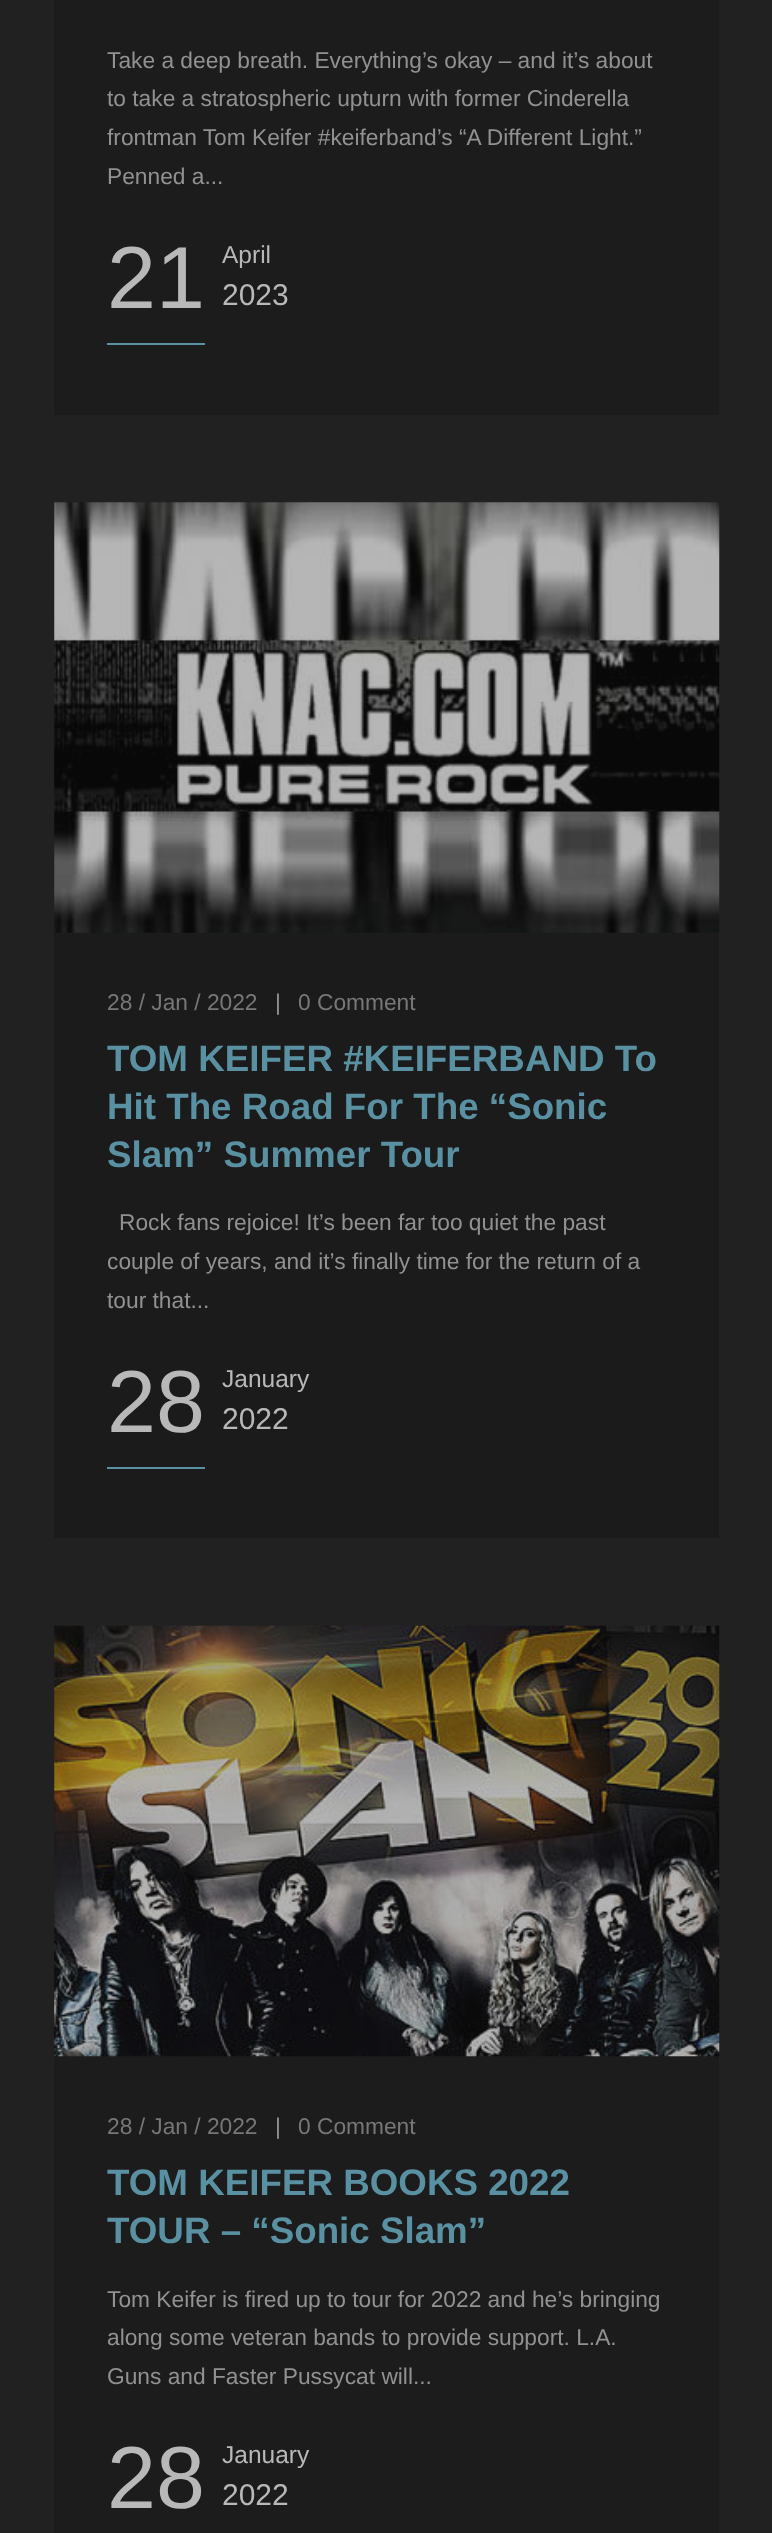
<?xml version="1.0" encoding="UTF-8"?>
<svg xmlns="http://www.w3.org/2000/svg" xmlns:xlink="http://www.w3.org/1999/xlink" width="772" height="2533">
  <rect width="100%" height="100%" fill="#212121" />
  <rect x="54" width="665" height="415" fill="#1c1c1c" />
  <rect x="107" y="343" width="98" height="2" fill="#5a91a2" />
  <rect x="54" y="502" width="665" height="1036" fill="#1b1b1b" />
  <image x="54" y="502" width="666" height="431" xlink:href="image1.png" />
  <rect x="107" y="1467" width="98" height="2" fill="#5a91a2" />
  <rect x="54" y="1626" width="665" height="907" fill="#1c1c1c" />
  <image x="54" y="1625" width="666" height="432" xlink:href="image2.png" />
  <text x="107" y="68" style="font-family: Liberation Sans; font-size: 22.75px; fill: #919191">Take a deep breath. Everything’s okay – and it’s about</text>
  <text x="107" y="106" style="font-family: Liberation Sans; font-size: 22.75px; fill: #919191">to take a stratospheric upturn with former Cinderella</text>
  <text x="107" y="145" style="font-family: Liberation Sans; font-size: 22.75px; fill: #919191">frontman Tom Keifer #keiferband’s “A Different Light.”</text>
  <text x="107" y="184" style="font-family: Liberation Sans; font-size: 22.75px; fill: #919191">Penned a...</text>
  <text x="107" y="308" style="font-family: Liberation Sans; font-size: 88px; fill: #b8b8b8">21</text>
  <text x="222" y="263" style="font-family: Liberation Sans; font-size: 24.5px; fill: #b8b8b8">April</text>
  <text x="222" y="305" style="font-family: Liberation Sans; font-size: 30px; fill: #b8b8b8">2023</text>
  <text x="107" y="1010" style="font-family: Liberation Sans; font-size: 22.75px; fill: #777777">28 / Jan / 2022</text>
  <text x="275" y="1010" style="font-family: Liberation Sans; font-size: 22.75px; fill: #919191">|</text>
  <text x="298" y="1010" style="font-family: Liberation Sans; font-size: 22.75px; fill: #777777">0 Comment</text>
  <text x="107" y="1071" style="font-family: Liberation Sans; font-size: 36.75px; font-weight: bold; fill: #5a91a2">TOM KEIFER #KEIFERBAND To</text>
  <text x="107" y="1119" style="font-family: Liberation Sans; font-size: 36.75px; font-weight: bold; fill: #5a91a2">Hit The Road For The “Sonic</text>
  <text x="107" y="1167" style="font-family: Liberation Sans; font-size: 36.75px; font-weight: bold; fill: #5a91a2">Slam” Summer Tour</text>
  <text x="119" y="1230" style="font-family: Liberation Sans; font-size: 22.75px; fill: #919191">Rock fans rejoice! It’s been far too quiet the past</text>
  <text x="107" y="1269" style="font-family: Liberation Sans; font-size: 22.75px; fill: #919191">couple of years, and it’s finally time for the return of a</text>
  <text x="107" y="1308" style="font-family: Liberation Sans; font-size: 22.75px; fill: #919191">tour that...</text>
  <text x="107" y="1432" style="font-family: Liberation Sans; font-size: 88px; fill: #b8b8b8">28</text>
  <text x="222" y="1387" style="font-family: Liberation Sans; font-size: 24.5px; fill: #b8b8b8">January</text>
  <text x="222" y="1429" style="font-family: Liberation Sans; font-size: 30px; fill: #b8b8b8">2022</text>
  <text x="107" y="2134" style="font-family: Liberation Sans; font-size: 22.75px; fill: #777777">28 / Jan / 2022</text>
  <text x="275" y="2134" style="font-family: Liberation Sans; font-size: 22.75px; fill: #919191">|</text>
  <text x="298" y="2134" style="font-family: Liberation Sans; font-size: 22.75px; fill: #777777">0 Comment</text>
  <text x="107" y="2195" style="font-family: Liberation Sans; font-size: 36.75px; font-weight: bold; fill: #5a91a2">TOM KEIFER BOOKS 2022</text>
  <text x="107" y="2243" style="font-family: Liberation Sans; font-size: 36.75px; font-weight: bold; fill: #5a91a2">TOUR – “Sonic Slam”</text>
  <text x="107" y="2307" style="font-family: Liberation Sans; font-size: 22.75px; fill: #919191">Tom Keifer is fired up to tour for 2022 and he’s bringing</text>
  <text x="107" y="2345" style="font-family: Liberation Sans; font-size: 22.75px; fill: #919191">along some veteran bands to provide support. L.A.</text>
  <text x="107" y="2384" style="font-family: Liberation Sans; font-size: 22.75px; fill: #919191">Guns and Faster Pussycat will...</text>
  <text x="107" y="2508" style="font-family: Liberation Sans; font-size: 88px; fill: #b8b8b8">28</text>
  <text x="222" y="2463" style="font-family: Liberation Sans; font-size: 24.5px; fill: #b8b8b8">January</text>
  <text x="222" y="2505" style="font-family: Liberation Sans; font-size: 30px; fill: #b8b8b8">2022</text>
</svg>
